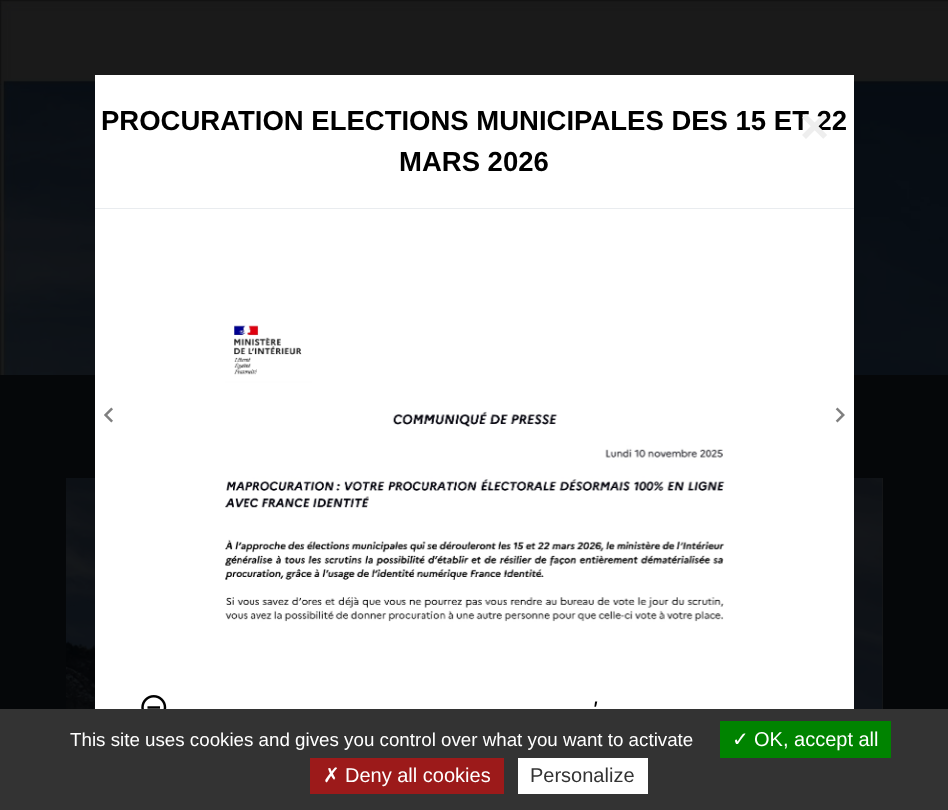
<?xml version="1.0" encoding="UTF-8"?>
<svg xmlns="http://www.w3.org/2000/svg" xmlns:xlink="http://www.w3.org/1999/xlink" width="948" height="810">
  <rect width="100%" height="100%" fill="#050709" />
  <image x="0" y="0" width="948" height="375" xlink:href="image1.png" />
  <rect x="882" y="478" width="1" height="231" fill="#1a1a1a" />
  <image x="66" y="478" width="817" height="231" xlink:href="image6.png" />
  <rect x="95" y="75" width="759" height="634" fill="#ffffff" />
  <rect x="95" y="208" width="759" height="1" fill="#e9ecef" />
  <image x="225" y="325" width="500" height="297" xlink:href="image2.png" />
  <image x="141" y="695" width="26" height="14" xlink:href="image3.png" />
  <image x="104" y="407" width="9" height="16" xlink:href="image4.png" />
  <image x="835" y="407" width="10" height="16" xlink:href="image5.png" />
  <rect y="709" width="948" height="101" fill="#333333" />
  <rect x="720" y="721" width="171" height="37" fill="#008300" />
  <rect x="310" y="758" width="194" height="36" fill="#9c1a1a" />
  <rect x="518" y="758" width="130" height="36" fill="#ffffff" />
  <text x="101" y="130" style="font-family: Liberation Sans; font-size: 27.5px; font-weight: bold; fill: #000000">PROCURATION ELECTIONS MUNICIPALES DES 15 ET 22</text>
  <text x="399" y="171" style="font-family: Liberation Sans; font-size: 27.5px; font-weight: bold; fill: #000000">MARS 2026</text>
  <text x="592" y="718" style="font-family: Liberation Sans; font-size: 24px; font-style: italic; fill: #000000">'</text>
  <text x="800" y="143" style="font-family: Liberation Sans; font-size: 50px; font-weight: bold; fill: #eeeeee">×</text>
  <text x="70" y="746" style="font-family: Liberation Sans; font-size: 18.75px; fill: #ffffff">This site uses cookies and gives you control over what you want to activate</text>
  <text x="732" y="746" style="font-family: DejaVu Sans; font-size: 20px; fill: #ffffff">✓</text>
  <text x="754" y="746" style="font-family: Liberation Sans; font-size: 20px; fill: #ffffff">OK, accept all</text>
  <text x="323" y="782" style="font-family: DejaVu Sans; font-size: 20px; fill: #ffffff">✗</text>
  <text x="345" y="782" style="font-family: Liberation Sans; font-size: 20px; fill: #ffffff">Deny all cookies</text>
  <text x="530" y="782" style="font-family: Liberation Sans; font-size: 20px; fill: #333333">Personalize</text>
</svg>
